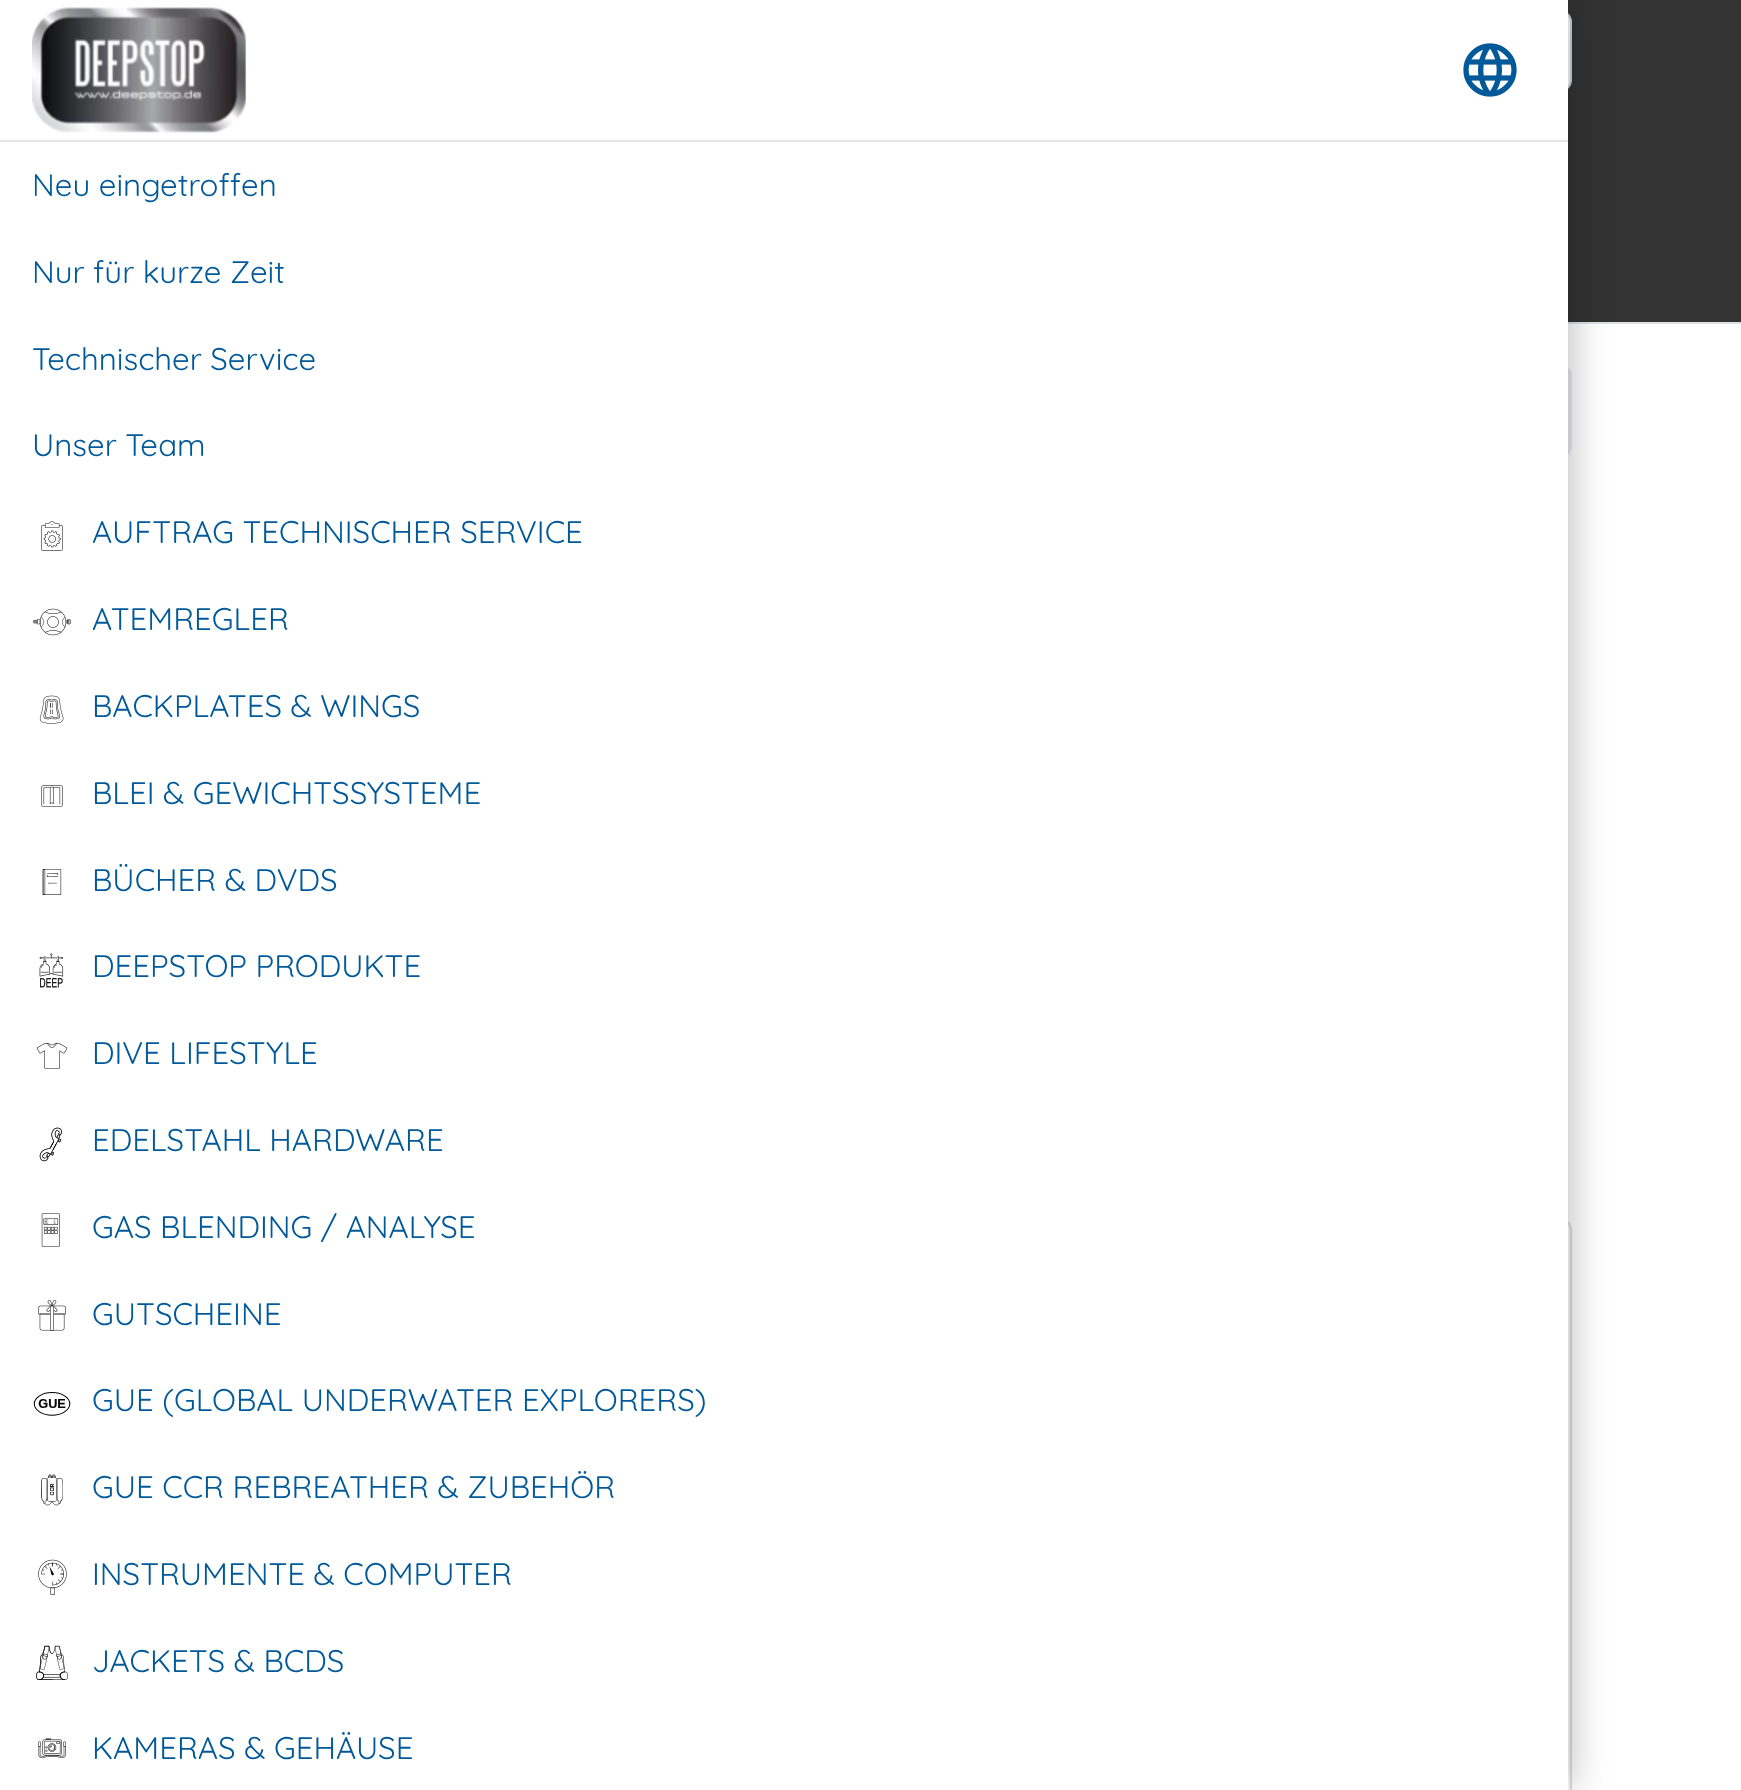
<?xml version="1.0" encoding="UTF-8"?>
<svg xmlns="http://www.w3.org/2000/svg" xmlns:xlink="http://www.w3.org/1999/xlink" width="1741" height="1790">
  <rect width="100%" height="100%" fill="#ffffff" />
  <rect x="1568" y="322" width="173" height="2" fill="#dee2e6" />
  <rect x="1568" width="173" height="322" fill="#333333" />
  <rect x="1355" y="11" width="216" height="80" rx="11" fill="#ffffff" stroke="#ced4da" stroke-width="2" />
  <rect x="172" y="364" width="1400" height="94" rx="12" fill="#e9ecef" />
  <rect x="1133" y="1219" width="438" height="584" rx="11" fill="none" stroke="#dfdfdf" stroke-width="2" />
  <rect width="1568" height="1790" fill="#000000" fill-opacity="0.3" filter="blur(20px)" />
  <rect width="1568" height="1790" fill="#ffffff" />
  <image x="32" y="7" width="214" height="126" xlink:href="image1.png" />
  <image x="1463" y="43" width="54" height="54" xlink:href="image2.png" />
  <rect y="140" width="1568" height="2" fill="#e6e6e6" />
  <image x="41" y="521" width="22" height="30" xlink:href="image3.png" />
  <image x="33" y="608" width="38" height="28" xlink:href="image4.png" />
  <image x="39" y="695" width="25" height="29" xlink:href="image5.png" />
  <image x="41" y="785" width="22" height="22" xlink:href="image6.png" />
  <image x="42" y="869" width="20" height="26" xlink:href="image7.png" />
  <image x="39" y="953" width="25" height="35" xlink:href="image8.png" />
  <image x="36" y="1042" width="32" height="27" xlink:href="image9.png" />
  <image x="39" y="1127" width="23" height="35" xlink:href="image10.png" />
  <image x="41" y="1213" width="19" height="34" xlink:href="image11.png" />
  <image x="38" y="1300" width="28" height="31" xlink:href="image12.png" />
  <image x="33" y="1392" width="38" height="24" xlink:href="image13.png" />
  <image x="41" y="1473" width="22" height="33" xlink:href="image14.png" />
  <image x="38" y="1559" width="29" height="36" xlink:href="image15.png" />
  <image x="36" y="1645" width="32" height="35" xlink:href="image16.png" />
  <image x="38" y="1738" width="28" height="20" xlink:href="image17.png" />
  <text x="32" y="196" style="font-family: Quicksand; font-size: 31.25px; font-weight: 300; fill: #015999">Neu eingetroffen</text>
  <text x="32" y="283" style="font-family: Quicksand; font-size: 31.25px; font-weight: 300; fill: #015999">Nur für kurze Zeit</text>
  <text x="32" y="370" style="font-family: Quicksand; font-size: 31.25px; font-weight: 300; fill: #015999">Technischer Service</text>
  <text x="32" y="456" style="font-family: Quicksand; font-size: 31.25px; font-weight: 300; fill: #015999">Unser Team</text>
  <text x="92" y="543" style="font-family: Quicksand; font-size: 31.25px; font-weight: 300; fill: #015999">AUFTRAG TECHNISCHER SERVICE</text>
  <text x="92" y="630" style="font-family: Quicksand; font-size: 31.25px; font-weight: 300; fill: #015999">ATEMREGLER</text>
  <text x="92" y="717" style="font-family: Quicksand; font-size: 31.25px; font-weight: 300; fill: #015999">BACKPLATES &amp; WINGS</text>
  <text x="92" y="804" style="font-family: Quicksand; font-size: 31.25px; font-weight: 300; fill: #015999">BLEI &amp; GEWICHTSSYSTEME</text>
  <text x="92" y="891" style="font-family: Quicksand; font-size: 31.25px; font-weight: 300; fill: #015999">BÜCHER &amp; DVDS</text>
  <text x="92" y="977" style="font-family: Quicksand; font-size: 31.25px; font-weight: 300; fill: #015999">DEEPSTOP PRODUKTE</text>
  <text x="92" y="1064" style="font-family: Quicksand; font-size: 31.25px; font-weight: 300; fill: #015999">DIVE LIFESTYLE</text>
  <text x="92" y="1151" style="font-family: Quicksand; font-size: 31.25px; font-weight: 300; fill: #015999">EDELSTAHL HARDWARE</text>
  <text x="92" y="1238" style="font-family: Quicksand; font-size: 31.25px; font-weight: 300; fill: #015999">GAS BLENDING / ANALYSE</text>
  <text x="92" y="1325" style="font-family: Quicksand; font-size: 31.25px; font-weight: 300; fill: #015999">GUTSCHEINE</text>
  <text x="92" y="1411" style="font-family: Quicksand; font-size: 31.25px; font-weight: 300; fill: #015999">GUE (GLOBAL UNDERWATER EXPLORERS)</text>
  <text x="92" y="1498" style="font-family: Quicksand; font-size: 31.25px; font-weight: 300; fill: #015999">GUE CCR REBREATHER &amp; ZUBEHÖR</text>
  <text x="92" y="1585" style="font-family: Quicksand; font-size: 31.25px; font-weight: 300; fill: #015999">INSTRUMENTE &amp; COMPUTER</text>
  <text x="92" y="1672" style="font-family: Quicksand; font-size: 31.25px; font-weight: 300; fill: #015999">JACKETS &amp; BCDS</text>
  <text x="92" y="1759" style="font-family: Quicksand; font-size: 31.25px; font-weight: 300; fill: #015999">KAMERAS &amp; GEHÄUSE</text>
</svg>
